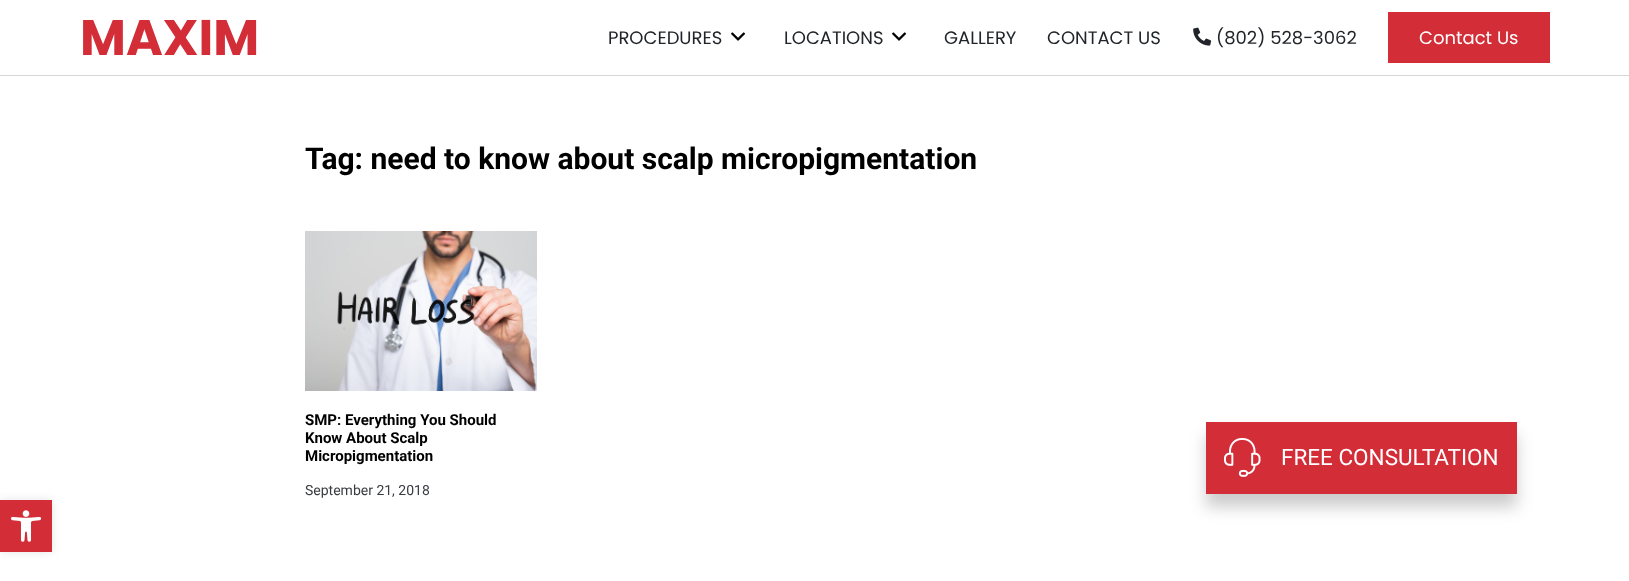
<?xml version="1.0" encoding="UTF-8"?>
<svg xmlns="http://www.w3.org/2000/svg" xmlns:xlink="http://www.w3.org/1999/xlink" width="1629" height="581">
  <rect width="100%" height="100%" fill="#ffffff" />
  <rect y="75" width="1629" height="1" fill="#d6d6d6" />
  <image x="731" y="32" width="14" height="9" xlink:href="image1.png" />
  <image x="892" y="32" width="14" height="9" xlink:href="image1.png" />
  <image x="1193" y="27" width="19" height="19" xlink:href="image2.png" />
  <rect x="1388" y="12" width="162" height="51" fill="#d32d38" />
  <image x="305" y="231" width="232" height="160" xlink:href="image3.png" />
  <rect x="1206" y="435" width="311" height="72" fill="#000000" fill-opacity="0.2" filter="blur(8px)" />
  <rect x="1206" y="422" width="311" height="72" fill="#d32d38" />
  <image x="1224" y="438" width="37" height="39" xlink:href="image4.png" />
  <rect y="500" width="52" height="52" fill="#000000" fill-opacity="0.1" filter="blur(5px)" />
  <rect y="500" width="52" height="52" fill="#d32d38" />
  <image x="11" y="510" width="30" height="32" xlink:href="image5.png" />
  <text x="80" y="55" style="font-family: Poppins; font-size: 50px; font-weight: bold; fill: #d32d38">MAXIM</text>
  <text x="608" y="44" style="font-family: Poppins; font-size: 18px; fill: #212529">PROCEDURES</text>
  <text x="784" y="44" style="font-family: Poppins; font-size: 18px; fill: #212529">LOCATIONS</text>
  <text x="944" y="44" style="font-family: Poppins; font-size: 18px; fill: #212529">GALLERY</text>
  <text x="1047" y="44" style="font-family: Poppins; font-size: 18px; fill: #212529">CONTACT US</text>
  <text x="1216" y="44" style="font-family: Poppins; font-size: 18px; fill: #212529">(802) 528-3062</text>
  <text x="1419" y="44" style="font-family: Poppins; font-size: 18px; fill: #ffffff">Contact Us</text>
  <text x="305" y="169" style="font-family: Roboto; font-size: 30px; font-weight: bold; fill: #000000">Tag: need to know about scalp micropigmentation</text>
  <text x="305" y="425" style="font-family: Roboto; font-size: 15px; font-weight: bold; fill: #000000">SMP: Everything You Should</text>
  <text x="305" y="443" style="font-family: Roboto; font-size: 15px; font-weight: bold; fill: #000000">Know About Scalp</text>
  <text x="305" y="461" style="font-family: Roboto; font-size: 15px; font-weight: bold; fill: #000000">Micropigmentation</text>
  <text x="305" y="495" style="font-family: Roboto; font-size: 14px; fill: #393c41">September 21, 2018</text>
  <text x="1281" y="465" style="font-family: Roboto; font-size: 22.5px; fill: #ffffff">FREE CONSULTATION</text>
</svg>
